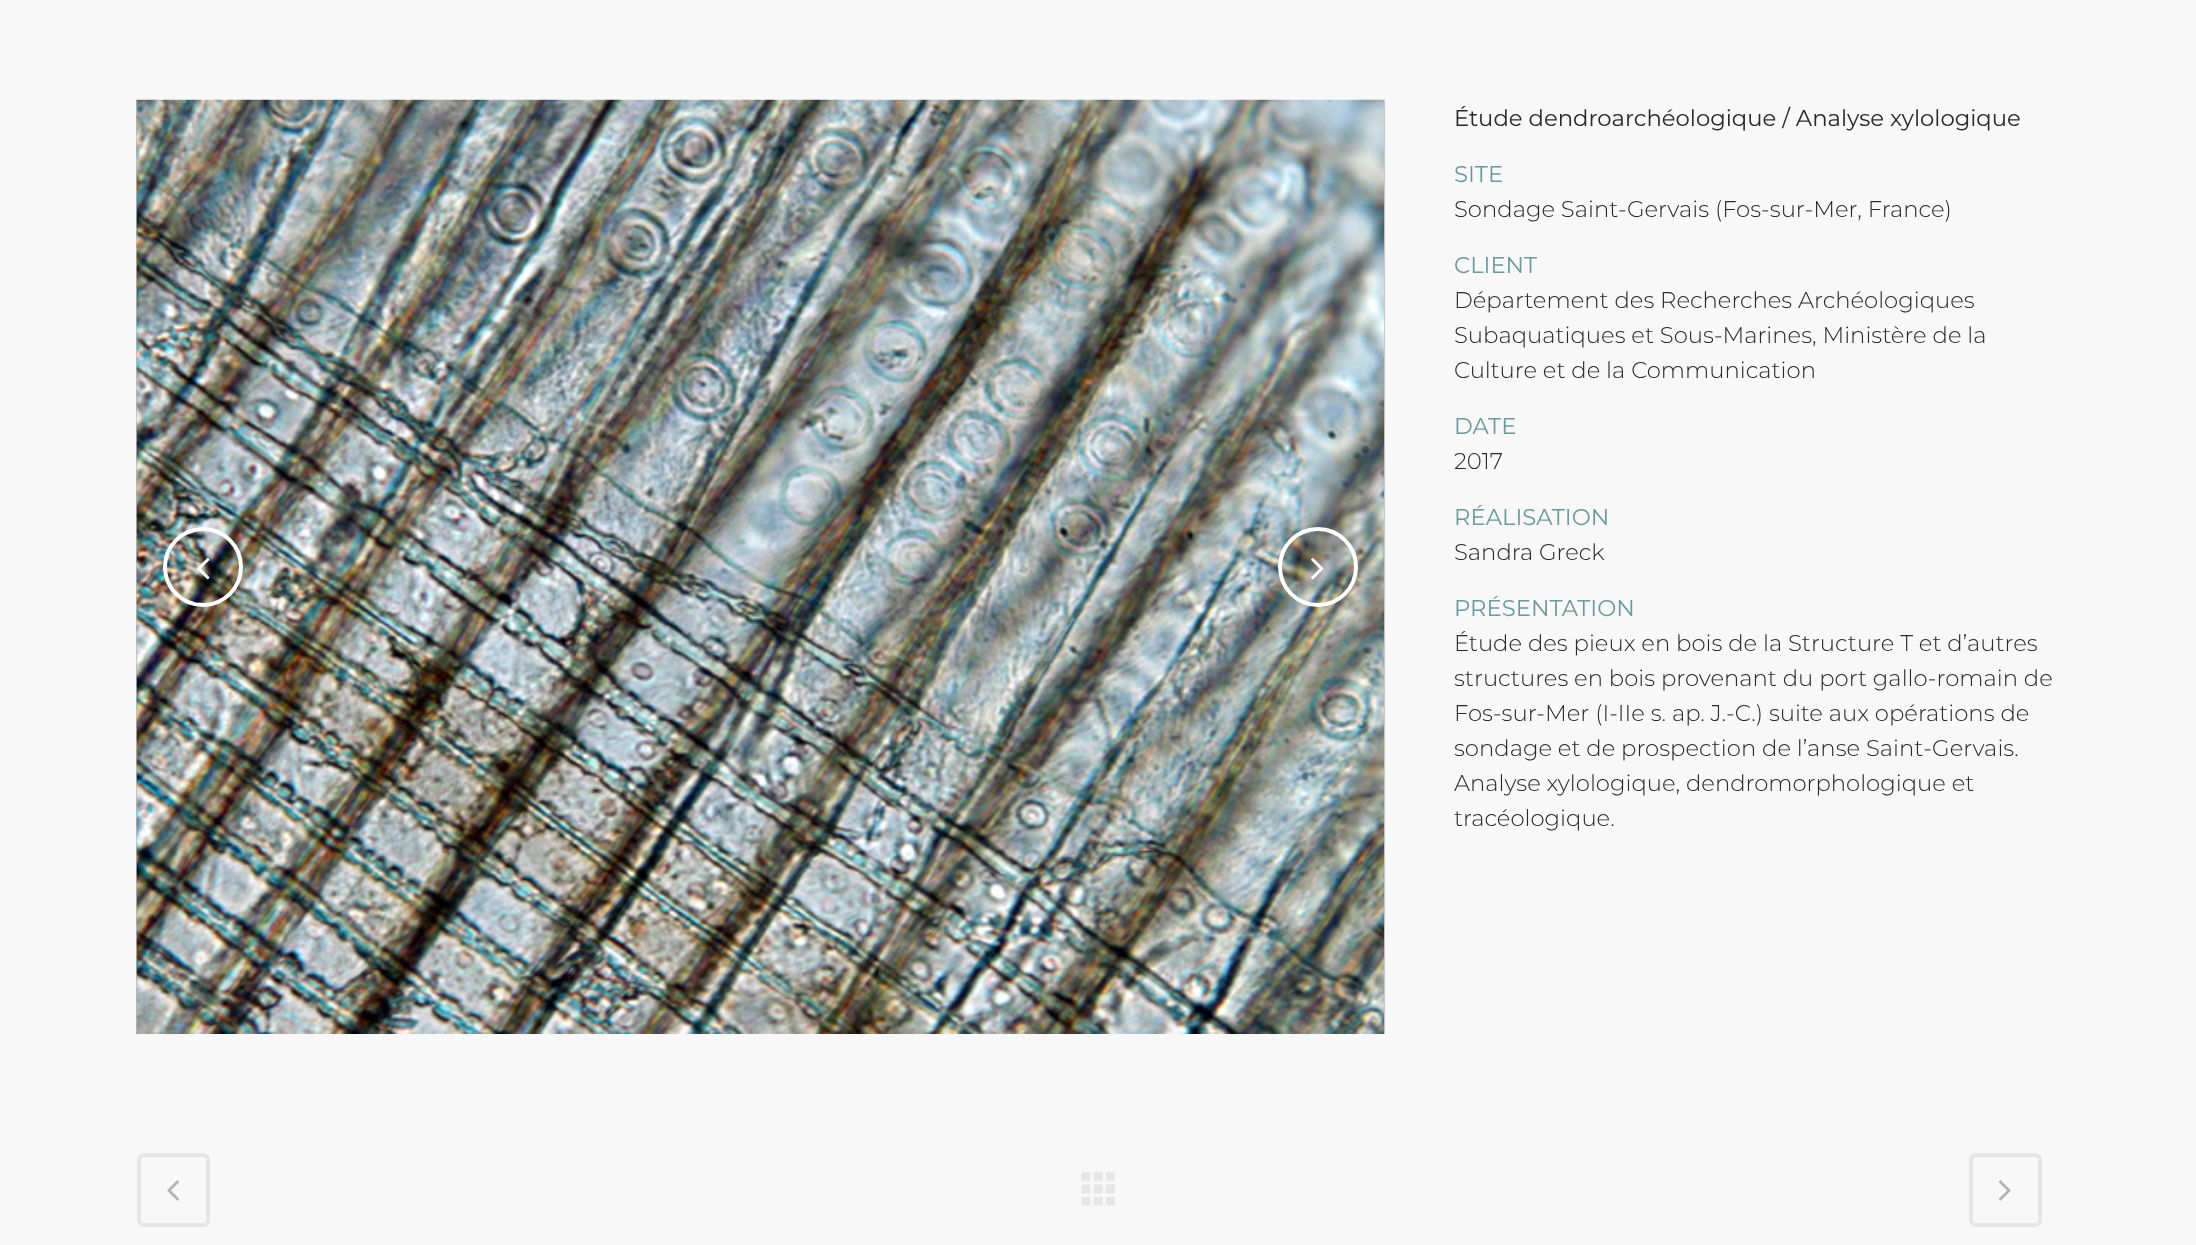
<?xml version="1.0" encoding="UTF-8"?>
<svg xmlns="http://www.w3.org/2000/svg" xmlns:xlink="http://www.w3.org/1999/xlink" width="2196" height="1245">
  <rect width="100%" height="100%" fill="#f8f8f8" />
  <image x="136" y="99" width="1" height="935" xlink:href="image1.png" />
  <image x="136" y="99" width="1249" height="935" xlink:href="image2.png" />
  <image x="1384" y="99" width="1" height="935" xlink:href="image3.png" />
  <circle cx="203" cy="567" r="38" fill="none" stroke="#ffffff" stroke-width="4" />
  <image x="197" y="558" width="13" height="22" xlink:href="image4.png" />
  <circle cx="1318" cy="567" r="38" fill="none" stroke="#ffffff" stroke-width="4" />
  <image x="1311" y="558" width="13" height="22" xlink:href="image5.png" />
  <rect x="139" y="1155" width="69" height="70" rx="5" fill="none" stroke="#e5e5e5" stroke-width="4" />
  <image x="167" y="1180" width="12" height="21" xlink:href="image6.png" />
  <image x="1081" y="1172" width="34" height="34" xlink:href="image7.png" />
  <rect x="1971" y="1155" width="69" height="70" rx="5" fill="none" stroke="#e5e5e5" stroke-width="4" />
  <image x="1998" y="1180" width="13" height="21" xlink:href="image8.png" />
  <text x="1454" y="126" style="font-family: Montserrat; font-size: 22.75px; fill: #292929">Étude dendroarchéologique / Analyse xylologique</text>
  <text x="1454" y="182" style="font-family: Montserrat; font-size: 22.75px; fill: #6c99a0">SITE</text>
  <text x="1454" y="217" style="font-family: Montserrat; font-size: 22.75px; font-weight: 300; fill: #292929">Sondage Saint-Gervais (Fos-sur-Mer, France)</text>
  <text x="1454" y="273" style="font-family: Montserrat; font-size: 22.75px; fill: #6c99a0">CLIENT</text>
  <text x="1454" y="308" style="font-family: Montserrat; font-size: 22.75px; font-weight: 300; fill: #292929">Département des Recherches Archéologiques</text>
  <text x="1454" y="343" style="font-family: Montserrat; font-size: 22.75px; font-weight: 300; fill: #292929">Subaquatiques et Sous-Marines, Ministère de la</text>
  <text x="1454" y="378" style="font-family: Montserrat; font-size: 22.75px; font-weight: 300; fill: #292929">Culture et de la Communication</text>
  <text x="1454" y="434" style="font-family: Montserrat; font-size: 22.75px; fill: #6c99a0">DATE</text>
  <text x="1454" y="469" style="font-family: Montserrat; font-size: 22.75px; font-weight: 300; fill: #292929">2017</text>
  <text x="1454" y="525" style="font-family: Montserrat; font-size: 22.75px; fill: #6c99a0">RÉALISATION</text>
  <text x="1454" y="560" style="font-family: Montserrat; font-size: 22.75px; font-weight: 300; fill: #292929">Sandra Greck</text>
  <text x="1454" y="616" style="font-family: Montserrat; font-size: 22.75px; fill: #6c99a0">PRÉSENTATION</text>
  <text x="1454" y="651" style="font-family: Montserrat; font-size: 22.75px; font-weight: 300; fill: #292929">Étude des pieux en bois de la Structure T et d’autres</text>
  <text x="1454" y="686" style="font-family: Montserrat; font-size: 22.75px; font-weight: 300; fill: #292929">structures en bois provenant du port gallo-romain de</text>
  <text x="1454" y="721" style="font-family: Montserrat; font-size: 22.75px; font-weight: 300; fill: #292929">Fos-sur-Mer (I-IIe s. ap. J.-C.) suite aux opérations de</text>
  <text x="1454" y="756" style="font-family: Montserrat; font-size: 22.75px; font-weight: 300; fill: #292929">sondage et de prospection de l’anse Saint-Gervais.</text>
  <text x="1454" y="791" style="font-family: Montserrat; font-size: 22.75px; font-weight: 300; fill: #292929">Analyse xylologique, dendromorphologique et</text>
  <text x="1454" y="826" style="font-family: Montserrat; font-size: 22.75px; font-weight: 300; fill: #292929">tracéologique.</text>
</svg>
